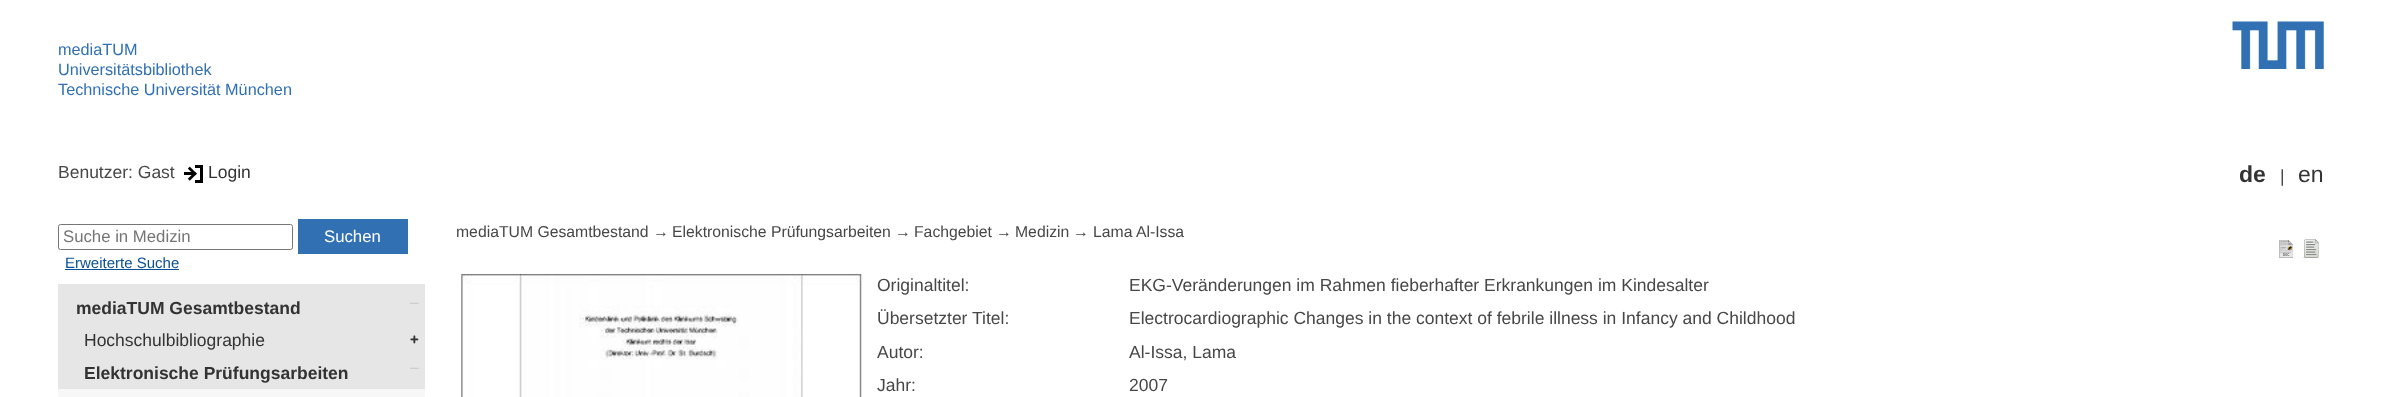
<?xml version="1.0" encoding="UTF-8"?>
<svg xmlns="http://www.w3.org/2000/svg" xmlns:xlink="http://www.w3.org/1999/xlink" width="2381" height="397">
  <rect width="100%" height="100%" fill="#ffffff" />
  <image x="2232" y="21" width="92" height="48" xlink:href="image1.png" />
  <image x="184" y="165" width="19" height="18" xlink:href="image2.png" />
  <rect x="58.5" y="224.5" width="234" height="25" rx="2" fill="none" stroke="#767676" />
  <rect x="298" y="219" width="110" height="35" fill="#3070b3" />
  <rect x="65" y="269" width="114" height="1" fill="#0a5096" />
  <rect x="58" y="284" width="367" height="105" fill="#e6e6e6" />
  <image x="410" y="302" width="9" height="2" xlink:href="image3.png" />
  <image x="410" y="335" width="9" height="9" xlink:href="image4.png" />
  <image x="410" y="367" width="9" height="2" xlink:href="image3.png" />
  <rect x="58" y="389" width="367" height="8" fill="#f7f7f7" />
  <image x="2279" y="240" width="14" height="18" xlink:href="image5.png" />
  <image x="2302" y="239" width="18" height="19" xlink:href="image6.png" />
  <image x="461" y="274" width="401" height="123" xlink:href="image7.png" />
  <text x="58" y="55" style="font-family: Liberation Sans; font-size: 16.25px; fill: #3070b3">mediaTUM</text>
  <text x="58" y="75" style="font-family: Liberation Sans; font-size: 16.25px; fill: #3070b3">Universitätsbibliothek</text>
  <text x="58" y="95" style="font-family: Liberation Sans; font-size: 16.25px; fill: #3070b3">Technische Universität München</text>
  <text x="58" y="178" style="font-family: Liberation Sans; font-size: 17.5px; fill: #474747">Benutzer: Gast</text>
  <text x="208" y="178" style="font-family: Liberation Sans; font-size: 17.5px; fill: #333333">Login</text>
  <text x="2239" y="182" style="font-family: Liberation Sans; font-size: 23px; font-weight: bold; fill: #333333">de</text>
  <text x="2280" y="182" style="font-family: Liberation Sans; font-size: 17.5px; fill: #474747">|</text>
  <text x="2298" y="182" style="font-family: Liberation Sans; font-size: 23px; fill: #333333">en</text>
  <text x="63" y="242" style="font-family: Liberation Sans; font-size: 16.75px; fill: #757575">Suche in Medizin</text>
  <text x="324" y="242" style="font-family: Liberation Sans; font-size: 16.75px; fill: #ffffff">Suchen</text>
  <text x="65" y="268" style="font-family: Liberation Sans; font-size: 15px; fill: #0a5096">Erweiterte Suche</text>
  <text x="76" y="314" style="font-family: Liberation Sans; font-size: 17.5px; font-weight: bold; fill: #333333">mediaTUM Gesamtbestand</text>
  <text x="84" y="346" style="font-family: Liberation Sans; font-size: 17.5px; fill: #333333">Hochschulbibliographie</text>
  <text x="84" y="379" style="font-family: Liberation Sans; font-size: 17.5px; font-weight: bold; fill: #333333">Elektronische Prüfungsarbeiten</text>
  <text x="456" y="237" style="font-family: Liberation Sans; font-size: 15.75px; fill: #474747">mediaTUM Gesamtbestand</text>
  <text x="653" y="237" style="font-family: Liberation Sans; font-size: 15.75px; fill: #474747">→</text>
  <text x="672" y="237" style="font-family: Liberation Sans; font-size: 15.75px; fill: #474747">Elektronische Prüfungsarbeiten</text>
  <text x="895" y="237" style="font-family: Liberation Sans; font-size: 15.75px; fill: #474747">→</text>
  <text x="914" y="237" style="font-family: Liberation Sans; font-size: 15.75px; fill: #474747">Fachgebiet</text>
  <text x="996" y="237" style="font-family: Liberation Sans; font-size: 15.75px; fill: #474747">→</text>
  <text x="1015" y="237" style="font-family: Liberation Sans; font-size: 15.75px; fill: #474747">Medizin</text>
  <text x="1073" y="237" style="font-family: Liberation Sans; font-size: 15.75px; fill: #474747">→</text>
  <text x="1093" y="237" style="font-family: Liberation Sans; font-size: 15.75px; fill: #474747">Lama Al-Issa</text>
  <text x="877" y="291" style="font-family: Liberation Sans; font-size: 17.5px; fill: #474747">Originaltitel:</text>
  <text x="1129" y="291" style="font-family: Liberation Sans; font-size: 17.5px; fill: #474747">EKG-Veränderungen im Rahmen fieberhafter Erkrankungen im Kindesalter</text>
  <text x="877" y="324" style="font-family: Liberation Sans; font-size: 17.5px; fill: #474747">Übersetzter Titel:</text>
  <text x="1129" y="324" style="font-family: Liberation Sans; font-size: 17.5px; fill: #474747">Electrocardiographic Changes in the context of febrile illness in Infancy and Childhood</text>
  <text x="877" y="358" style="font-family: Liberation Sans; font-size: 17.5px; fill: #474747">Autor:</text>
  <text x="1129" y="358" style="font-family: Liberation Sans; font-size: 17.5px; fill: #474747">Al-Issa, Lama</text>
  <text x="877" y="391" style="font-family: Liberation Sans; font-size: 17.5px; fill: #474747">Jahr:</text>
  <text x="1129" y="391" style="font-family: Liberation Sans; font-size: 17.5px; fill: #474747">2007</text>
</svg>
